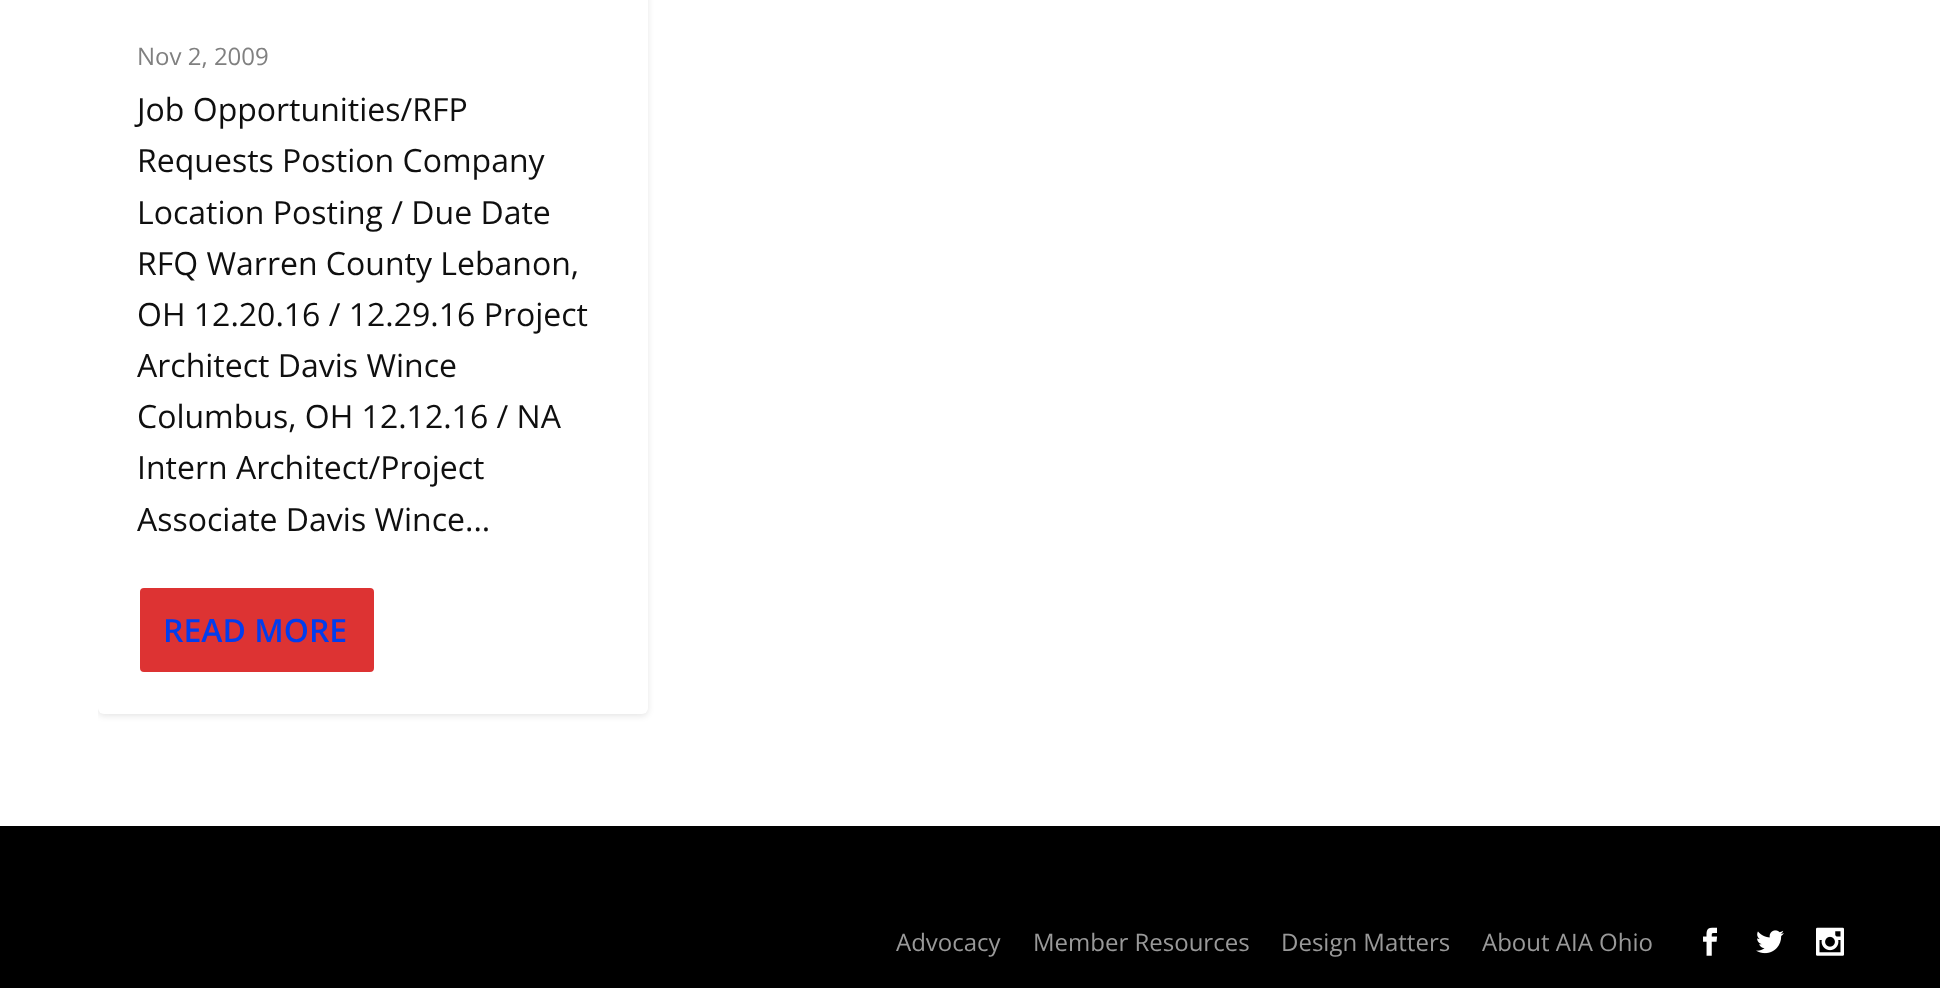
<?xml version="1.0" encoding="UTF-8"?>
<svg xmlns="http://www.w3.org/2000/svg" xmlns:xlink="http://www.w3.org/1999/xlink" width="1940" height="989">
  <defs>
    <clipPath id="clip1"><rect x="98" y="-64" width="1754" height="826" rx="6" /></clipPath>
  </defs>
  <rect width="100%" height="100%" fill="#ffffff" />
  <g clip-path="url(#clip1)">
    <rect x="98" y="-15" width="550" height="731" rx="6" fill="#000000" fill-opacity="0.1" filter="blur(3px)" />
  </g>
  <rect x="98" y="-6" width="550" height="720" rx="6" fill="#ffffff" />
  <rect x="139" y="587" width="236" height="86" rx="5" fill="#dd3333" stroke="#ffffff" stroke-width="2" />
  <rect y="826" width="1940" height="162" fill="#000000" />
  <image x="1703" y="927" width="15" height="29" xlink:href="image1.png" />
  <image x="1756" y="930" width="28" height="24" xlink:href="image2.png" />
  <image x="1816" y="927" width="28" height="29" xlink:href="image3.png" />
  <text x="137" y="65" style="font-family: Open Sans; font-size: 24px; fill: #808080">Nov 2, 2009</text>
  <text x="137" y="121" style="font-family: Open Sans; font-size: 32px; fill: #0f0f0f">Job Opportunities/RFP</text>
  <text x="137" y="172" style="font-family: Open Sans; font-size: 32px; fill: #0f0f0f">Requests Postion Company</text>
  <text x="137" y="224" style="font-family: Open Sans; font-size: 32px; fill: #0f0f0f">Location Posting / Due Date</text>
  <text x="137" y="275" style="font-family: Open Sans; font-size: 32px; fill: #0f0f0f">RFQ Warren County Lebanon,</text>
  <text x="137" y="326" style="font-family: Open Sans; font-size: 32px; fill: #0f0f0f">OH 12.20.16 / 12.29.16 Project</text>
  <text x="137" y="377" style="font-family: Open Sans; font-size: 32px; fill: #0f0f0f">Architect Davis Wince</text>
  <text x="137" y="428" style="font-family: Open Sans; font-size: 32px; fill: #0f0f0f">Columbus, OH 12.12.16 / NA</text>
  <text x="137" y="479" style="font-family: Open Sans; font-size: 32px; fill: #0f0f0f">Intern Architect/Project</text>
  <text x="137" y="531" style="font-family: Open Sans; font-size: 32px; fill: #0f0f0f">Associate Davis Wince...</text>
  <text x="163" y="642" style="font-family: Open Sans; font-size: 32px; font-weight: 600; fill: #023ded">READ MORE</text>
  <text x="896" y="951" style="font-family: Open Sans; font-size: 24px; fill: #999999">Advocacy</text>
  <text x="1033" y="951" style="font-family: Open Sans; font-size: 24px; fill: #999999">Member Resources</text>
  <text x="1281" y="951" style="font-family: Open Sans; font-size: 24px; fill: #999999">Design Matters</text>
  <text x="1482" y="951" style="font-family: Open Sans; font-size: 24px; fill: #999999">About AIA Ohio</text>
</svg>
